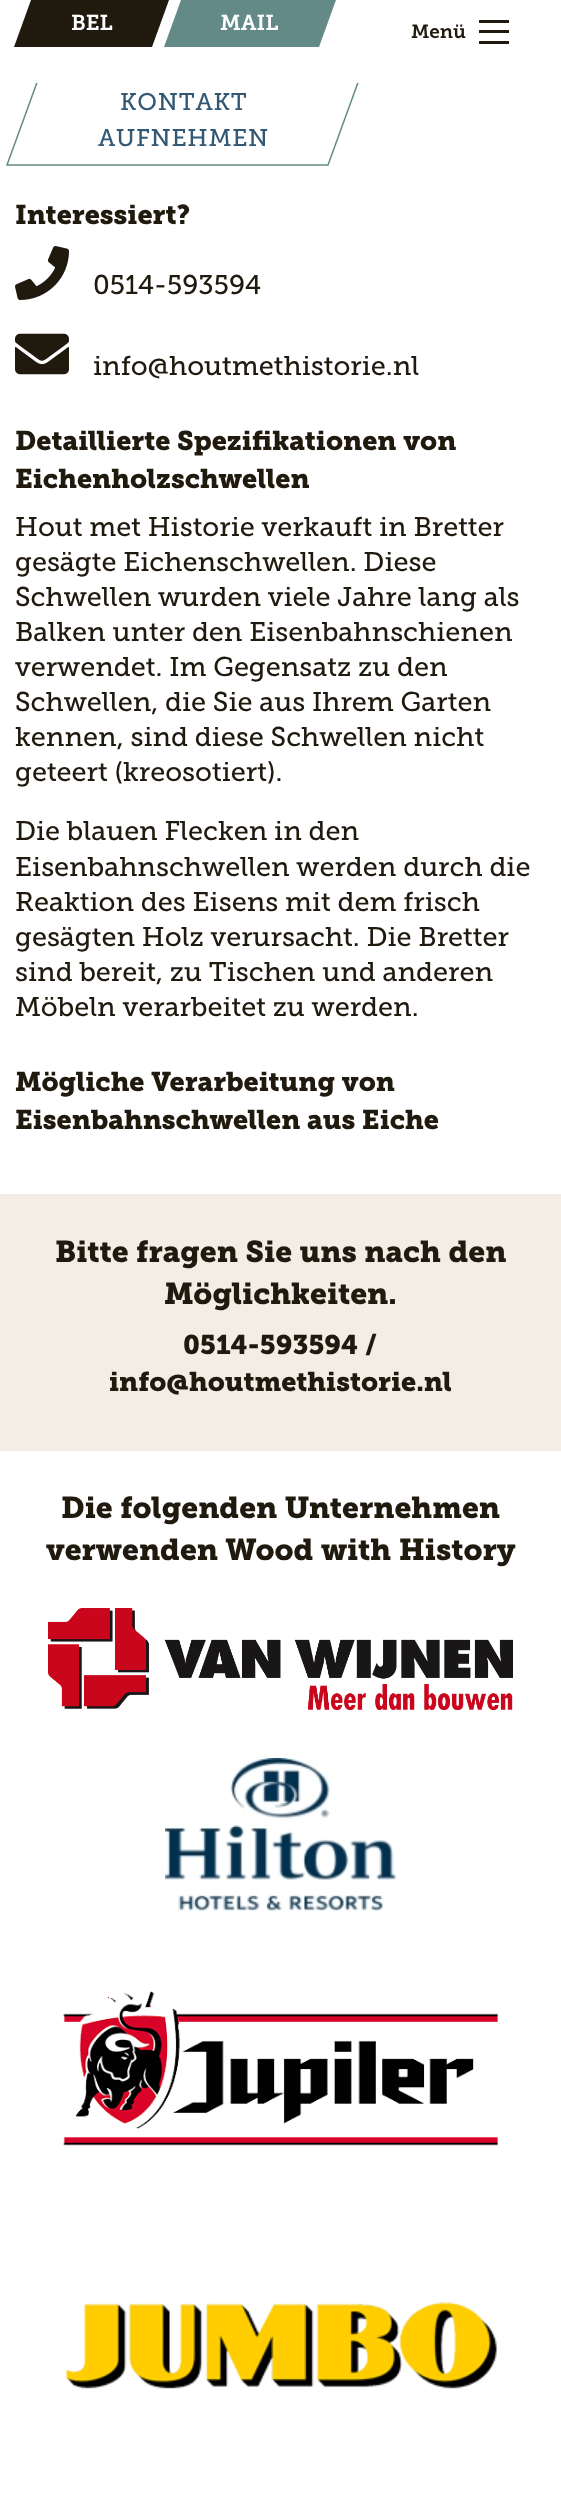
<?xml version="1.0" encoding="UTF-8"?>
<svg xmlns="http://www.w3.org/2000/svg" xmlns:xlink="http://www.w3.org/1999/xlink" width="561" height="2505">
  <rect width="100%" height="100%" fill="#ffffff" />
  <path d="M 39 77 h 321 l -32 88 h -321 z" fill="none" stroke="#648a87" stroke-width="1.5" />
  <rect x="36" y="76" width="325" height="7" fill="#fefefe" />
  <path d="M 31 0 h 138 l -17 47 h -138 z" fill="#1f190e" />
  <path d="M 181 0 h 155 l -17 47 h -155 z" fill="#648a87" />
  <rect x="479" y="41" width="30" height="3" fill="#1f190e" />
  <rect x="479" y="30" width="30" height="3" fill="#1f190e" />
  <rect x="479" y="20" width="30" height="3" fill="#1f190e" />
  <image x="15" y="246" width="54" height="54" xlink:href="image1.png" />
  <image x="15" y="333" width="54" height="42" xlink:href="image2.png" />
  <rect y="1194" width="561" height="257" fill="#f4ede6" />
  <image x="48" y="1608" width="465" height="102" xlink:href="image3.png" />
  <image x="165" y="1758" width="231" height="153" xlink:href="image4.png" />
  <image x="63" y="1991" width="435" height="155" xlink:href="image5.png" />
  <image x="65" y="2302" width="432" height="87" xlink:href="image6.png" />
  <text x="71" y="30" style="font-family: 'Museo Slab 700'; font-size: 21.5px; font-weight: 600; fill: #fefefe">BEL</text>
  <text x="220" y="30" style="font-family: 'Museo Slab 700'; font-size: 21.5px; font-weight: 600; fill: #fefefe">MAIL</text>
  <text x="411" y="38" style="font-family: 'Museo Slab 700'; font-size: 19px; font-weight: 600; fill: #1f190e">Menü</text>
  <text x="120" y="110" style="font-family: 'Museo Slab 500'; font-size: 24px; letter-spacing: 0.75px; fill: #335873">KONTAKT</text>
  <text x="98" y="146" style="font-family: 'Museo Slab 500'; font-size: 24px; letter-spacing: 0.75px; fill: #335873">AUFNEHMEN</text>
  <text x="15" y="224" style="font-family: 'Museo Slab 500'; font-size: 27px; font-weight: bold; fill: #1f190e">Interessiert?</text>
  <text x="93" y="294" style="font-family: 'Museo Slab 500'; font-size: 27px; fill: #1f190e">0514-593594</text>
  <text x="93" y="375" style="font-family: 'Museo Slab 500'; font-size: 27px; fill: #1f190e">info@houtmethistorie.nl</text>
  <text x="15" y="450" style="font-family: 'Museo Slab 500'; font-size: 27px; font-weight: bold; fill: #1f190e">Detaillierte Spezifikationen von</text>
  <text x="15" y="488" style="font-family: 'Museo Slab 500'; font-size: 27px; font-weight: bold; fill: #1f190e">Eichenholzschwellen</text>
  <text x="15" y="536" style="font-family: 'Museo Slab 500'; font-size: 27px; fill: #1f190e">Hout met Historie verkauft in Bretter</text>
  <text x="15" y="571" style="font-family: 'Museo Slab 500'; font-size: 27px; fill: #1f190e">gesägte Eichenschwellen. Diese</text>
  <text x="15" y="606" style="font-family: 'Museo Slab 500'; font-size: 27px; fill: #1f190e">Schwellen wurden viele Jahre lang als</text>
  <text x="15" y="641" style="font-family: 'Museo Slab 500'; font-size: 27px; fill: #1f190e">Balken unter den Eisenbahnschienen</text>
  <text x="15" y="676" style="font-family: 'Museo Slab 500'; font-size: 27px; fill: #1f190e">verwendet. Im Gegensatz zu den</text>
  <text x="15" y="711" style="font-family: 'Museo Slab 500'; font-size: 27px; fill: #1f190e">Schwellen, die Sie aus Ihrem Garten</text>
  <text x="15" y="746" style="font-family: 'Museo Slab 500'; font-size: 27px; fill: #1f190e">kennen, sind diese Schwellen nicht</text>
  <text x="15" y="781" style="font-family: 'Museo Slab 500'; font-size: 27px; fill: #1f190e">geteert (kreosotiert).</text>
  <text x="15" y="840" style="font-family: 'Museo Slab 500'; font-size: 27px; fill: #1f190e">Die blauen Flecken in den</text>
  <text x="15" y="876" style="font-family: 'Museo Slab 500'; font-size: 27px; fill: #1f190e">Eisenbahnschwellen werden durch die</text>
  <text x="15" y="911" style="font-family: 'Museo Slab 500'; font-size: 27px; fill: #1f190e">Reaktion des Eisens mit dem frisch</text>
  <text x="15" y="946" style="font-family: 'Museo Slab 500'; font-size: 27px; fill: #1f190e">gesägten Holz verursacht. Die Bretter</text>
  <text x="15" y="981" style="font-family: 'Museo Slab 500'; font-size: 27px; fill: #1f190e">sind bereit, zu Tischen und anderen</text>
  <text x="15" y="1016" style="font-family: 'Museo Slab 500'; font-size: 27px; fill: #1f190e">Möbeln verarbeitet zu werden.</text>
  <text x="15" y="1091" style="font-family: 'Museo Slab 500'; font-size: 27px; font-weight: bold; fill: #1f190e">Mögliche Verarbeitung von</text>
  <text x="15" y="1129" style="font-family: 'Museo Slab 500'; font-size: 27px; font-weight: bold; fill: #1f190e">Eisenbahnschwellen aus Eiche</text>
  <text x="55" y="1262" style="font-family: 'Museo Slab 500'; font-size: 30px; font-weight: bold; fill: #1f190e">Bitte fragen Sie uns nach den</text>
  <text x="164" y="1304" style="font-family: 'Museo Slab 500'; font-size: 30px; font-weight: bold; fill: #1f190e">Möglichkeiten.</text>
  <text x="183" y="1354" style="font-family: 'Museo Slab 500'; font-size: 27px; font-weight: bold; fill: #1f190e">0514-593594 /</text>
  <text x="109" y="1391" style="font-family: 'Museo Slab 500'; font-size: 27px; font-weight: bold; fill: #1f190e">info@houtmethistorie.nl</text>
  <text x="61" y="1518" style="font-family: 'Museo Slab 500'; font-size: 30px; font-weight: bold; fill: #1f190e">Die folgenden Unternehmen</text>
  <text x="46" y="1560" style="font-family: 'Museo Slab 500'; font-size: 30px; font-weight: bold; fill: #1f190e">verwenden Wood with History</text>
</svg>
